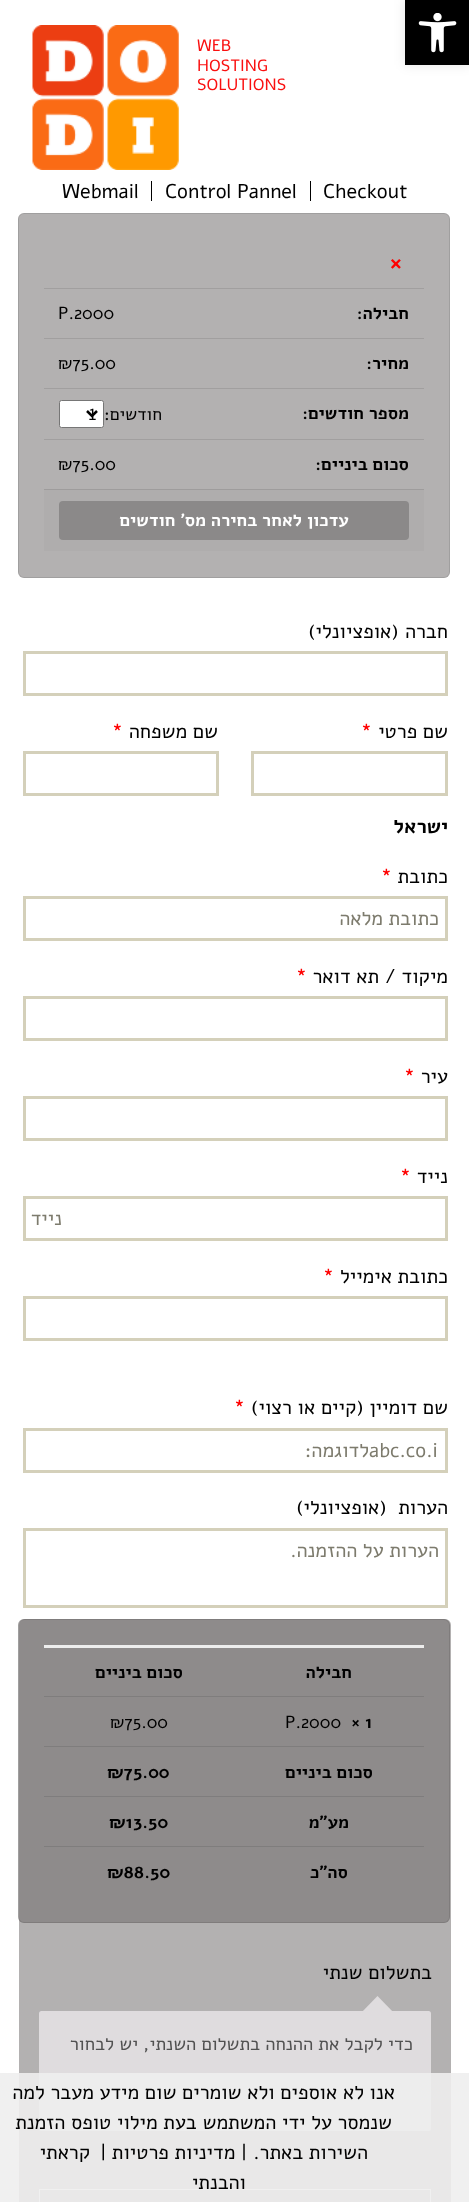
<?xml version="1.0" encoding="UTF-8"?>
<svg xmlns="http://www.w3.org/2000/svg" xmlns:xlink="http://www.w3.org/1999/xlink" width="469" height="2202">
  <rect width="100%" height="100%" fill="#ffffff" />
  <rect x="405" width="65" height="65" fill="#000000" fill-opacity="0.1" filter="blur(6px)" />
  <rect x="405" width="64" height="65" fill="#000000" />
  <image x="418" y="13" width="39" height="40" xlink:href="image1.png" />
  <image x="32" y="25" width="147" height="145" xlink:href="image2.png" />
  <rect x="310" y="181" width="1" height="20" fill="#000000" />
  <rect x="151" y="181" width="1" height="20" fill="#000000" />
  <rect x="18" y="213" width="432" height="365" rx="6" fill="#b3b1b1" />
  <rect x="18.5" y="213.5" width="431" height="364" rx="5.5" fill="none" stroke="#000000" stroke-opacity="0.1" />
  <rect x="44" y="288" width="380" height="1" fill="#a19f9f" />
  <rect x="44" y="338" width="380" height="1" fill="#a19f9f" />
  <rect x="44" y="388" width="380" height="1" fill="#a19f9f" />
  <rect x="59.5" y="400.5" width="44" height="27" rx="2" fill="#ffffff" stroke="#767676" />
  <path d="M 87 411 l 5 5 l 5 -5" fill="none" stroke="#000000" stroke-width="2.5" />
  <rect x="44" y="439" width="380" height="1" fill="#a19f9f" />
  <rect x="44" y="490" width="380" height="61" fill="#afadad" />
  <rect x="44" y="489" width="380" height="1" fill="#9e9c9c" />
  <rect x="59" y="501" width="350" height="39" rx="4" fill="#8b8989" />
  <rect x="24.5" y="652.5" width="422" height="42" fill="none" stroke="#d4d0ba" stroke-width="3" />
  <rect x="252.5" y="752.5" width="194" height="42" fill="none" stroke="#d4d0ba" stroke-width="3" />
  <rect x="24.5" y="752.5" width="193" height="42" fill="none" stroke="#d4d0ba" stroke-width="3" />
  <rect x="24.5" y="897.5" width="422" height="42" fill="none" stroke="#d4d0ba" stroke-width="3" />
  <rect x="24.5" y="997.5" width="422" height="42" fill="none" stroke="#d4d0ba" stroke-width="3" />
  <rect x="24.5" y="1097.5" width="422" height="42" fill="none" stroke="#d4d0ba" stroke-width="3" />
  <rect x="24.5" y="1197.5" width="422" height="42" fill="none" stroke="#d4d0ba" stroke-width="3" />
  <rect x="24.5" y="1297.5" width="422" height="42" fill="none" stroke="#d4d0ba" stroke-width="3" />
  <rect x="24.5" y="1429.5" width="422" height="42" fill="none" stroke="#d4d0ba" stroke-width="3" />
  <rect x="24.5" y="1529.5" width="422" height="77" fill="none" stroke="#d4d0ba" stroke-width="3" />
  <rect x="19" y="1619" width="432" height="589" rx="6" fill="#b3b1b1" />
  <rect x="18" y="1619" width="432" height="304" rx="6" fill="#696666" fill-opacity="0.51" />
  <rect x="18.5" y="1619.5" width="431" height="303" rx="5.5" fill="none" stroke="#000000" stroke-opacity="0.1" />
  <rect x="44" y="1645" width="380" height="3" fill="#ededed" />
  <rect x="44" y="1696" width="380" height="1" fill="#7f7d7d" />
  <rect x="44" y="1746" width="380" height="1" fill="#7f7d7d" />
  <rect x="44" y="1796" width="380" height="1" fill="#7f7d7d" />
  <rect x="44" y="1846" width="380" height="1" fill="#7f7d7d" />
  <rect x="39" y="2011" width="392" height="120" rx="2.5" fill="#dfdcde" />
  <path d="M 395 2014 h -35 l 17.5 -18 z" fill="#dfdcde" />
  <rect x="39.5" y="2189.5" width="391" height="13" fill="none" stroke="#ffffff" />
  <rect y="2073" width="469" height="129" fill="#eeeeee" fill-opacity="0.9" />
  <text x="197" y="51" style="font-family: Alef; font-size: 16.25px; fill: #fa1010">WEB</text>
  <text x="197" y="71" style="font-family: Alef; font-size: 16.25px; fill: #fa1010">HOSTING</text>
  <text x="197" y="90" style="font-family: Alef; font-size: 16.25px; fill: #fa1010">SOLUTIONS</text>
  <text x="323" y="198" style="font-family: Alef; font-size: 20px; fill: #000000">Checkout</text>
  <text x="165" y="198" style="font-family: Alef; font-size: 20px; fill: #000000">Control Pannel</text>
  <text x="62" y="198" style="font-family: Alef; font-size: 20px; fill: #000000">Webmail</text>
  <text x="389" y="271" style="font-family: Alef; font-size: 26px; font-weight: bold; fill: #ff0000">×</text>
  <text x="409" y="319" style="font-family: Alef; font-size: 17.5px; font-weight: bold; direction: rtl; fill: #000000">חבילה:</text>
  <text x="58" y="319" style="font-family: Alef; font-size: 17.5px; fill: #000000">P.2000</text>
  <text x="409" y="369" style="font-family: Alef; font-size: 17.5px; font-weight: bold; direction: rtl; fill: #000000">מחיר:</text>
  <text x="58" y="369" style="font-family: Alef; font-size: 17.5px; fill: #000000">₪75.00</text>
  <text x="409" y="419" style="font-family: Alef; font-size: 17.5px; font-weight: bold; direction: rtl; fill: #000000">מספר חודשים:</text>
  <text x="162" y="420" style="font-family: Alef; font-size: 17.5px; direction: rtl; fill: #000000">חודשים:</text>
  <text x="88" y="420" style="font-family: Source Sans Pro; font-size: 17.5px; fill: #000000">1</text>
  <text x="409" y="470" style="font-family: Alef; font-size: 17.5px; font-weight: bold; direction: rtl; fill: #000000">סכום ביניים:</text>
  <text x="58" y="470" style="font-family: Alef; font-size: 17.5px; fill: #000000">₪75.00</text>
  <text x="349" y="526" style="font-family: Alef; font-size: 17.5px; font-weight: bold; direction: rtl; fill: #ffffff">עדכון לאחר בחירה מס' חודשים</text>
  <text x="448" y="638" style="font-family: Alef; font-size: 20px; direction: rtl; fill: #000000">חברה</text>
  <text x="399" y="638" style="font-family: Alef; font-size: 20px; direction: rtl; fill: #000000">(אופציונלי)</text>
  <text x="448" y="738" style="font-family: Alef; font-size: 20px; direction: rtl; fill: #000000">שם פרטי</text>
  <text x="361" y="738" style="font-family: Alef; font-size: 20px; font-weight: bold; fill: #ff0000">*</text>
  <text x="218" y="738" style="font-family: Alef; font-size: 20px; direction: rtl; fill: #000000">שם משפחה</text>
  <text x="112" y="738" style="font-family: Alef; font-size: 20px; font-weight: bold; fill: #ff0000">*</text>
  <text x="448" y="833" style="font-family: Alef; font-size: 20px; font-weight: bold; direction: rtl; fill: #000000">ישראל</text>
  <text x="448" y="883" style="font-family: Alef; font-size: 20px; direction: rtl; fill: #000000">כתובת</text>
  <text x="381" y="883" style="font-family: Alef; font-size: 20px; font-weight: bold; fill: #ff0000">*</text>
  <text x="439" y="925" style="font-family: Alef; font-size: 20px; direction: rtl; fill: #7d7b6d">כתובת מלאה</text>
  <text x="448" y="983" style="font-family: Alef; font-size: 20px; direction: rtl; fill: #000000">מיקוד / תא דואר</text>
  <text x="296" y="983" style="font-family: Alef; font-size: 20px; font-weight: bold; fill: #ff0000">*</text>
  <text x="448" y="1083" style="font-family: Alef; font-size: 20px; direction: rtl; fill: #000000">עיר</text>
  <text x="404" y="1083" style="font-family: Alef; font-size: 20px; font-weight: bold; fill: #ff0000">*</text>
  <text x="448" y="1183" style="font-family: Alef; font-size: 20px; direction: rtl; fill: #000000">נייד</text>
  <text x="400" y="1183" style="font-family: Alef; font-size: 20px; font-weight: bold; fill: #ff0000">*</text>
  <text x="62" y="1225" style="font-family: Alef; font-size: 20px; direction: rtl; fill: #7d7b6d">נייד</text>
  <text x="448" y="1283" style="font-family: Alef; font-size: 20px; direction: rtl; fill: #000000">כתובת אימייל</text>
  <text x="323" y="1283" style="font-family: Alef; font-size: 20px; font-weight: bold; fill: #ff0000">*</text>
  <text x="448" y="1414" style="font-family: Alef; font-size: 20px; direction: rtl; fill: #000000">שם דומיין (קיים או רצוי)</text>
  <text x="234" y="1414" style="font-family: Alef; font-size: 20px; font-weight: bold; fill: #ff0000">*</text>
  <text x="369" y="1457" style="font-family: Alef; font-size: 20px; fill: #7d7b6d">abc.co.i</text>
  <text x="369" y="1457" style="font-family: Alef; font-size: 20px; direction: rtl; fill: #7d7b6d">לדוגמה:</text>
  <text x="448" y="1514" style="font-family: Alef; font-size: 20px; direction: rtl; fill: #000000">הערות</text>
  <text x="387" y="1514" style="font-family: Alef; font-size: 20px; direction: rtl; fill: #000000">(אופציונלי)</text>
  <text x="439" y="1557" style="font-family: Alef; font-size: 20px; direction: rtl; fill: #7d7b6d">הערות על ההזמנה.</text>
  <text x="352" y="1678" style="font-family: Alef; font-size: 17.5px; font-weight: bold; direction: rtl; fill: #000000">חבילה</text>
  <text x="183" y="1678" style="font-family: Alef; font-size: 17.5px; font-weight: bold; direction: rtl; fill: #000000">סכום ביניים</text>
  <text x="351" y="1728" style="font-family: Alef; font-size: 17.5px; font-weight: bold; fill: #000000">× 1</text>
  <text x="285" y="1728" style="font-family: Alef; font-size: 17.5px; fill: #000000">P.2000</text>
  <text x="110" y="1728" style="font-family: Alef; font-size: 17.5px; fill: #000000">₪75.00</text>
  <text x="373" y="1778" style="font-family: Alef; font-size: 17.5px; font-weight: bold; direction: rtl; fill: #000000">סכום ביניים</text>
  <text x="107" y="1778" style="font-family: Alef; font-size: 17.5px; font-weight: bold; fill: #000000">₪75.00</text>
  <text x="349" y="1828" style="font-family: Alef; font-size: 17.5px; font-weight: bold; direction: rtl; fill: #000000">מע"מ</text>
  <text x="109" y="1828" style="font-family: Alef; font-size: 17.5px; font-weight: bold; fill: #000000">₪13.50</text>
  <text x="348" y="1878" style="font-family: Alef; font-size: 17.5px; font-weight: bold; direction: rtl; fill: #000000">סה"כ</text>
  <text x="107" y="1878" style="font-family: Alef; font-size: 17.5px; font-weight: bold; fill: #000000">₪88.50</text>
  <text x="432" y="1979" style="font-family: Alef; font-size: 20px; direction: rtl; fill: #000000">בתשלום שנתי</text>
  <text x="413" y="2050" style="font-family: Alef; font-size: 18.4px; direction: rtl; fill: #515151">כדי לקבל את ההנחה בתשלום השנתי, יש לבחור</text>
  <text x="395" y="2099" style="font-family: Alef; font-size: 20px; direction: rtl; fill: #000000">אנו לא אוספים ולא שומרים שום מידע מעבר למה</text>
  <text x="392" y="2129" style="font-family: Alef; font-size: 20px; direction: rtl; fill: #000000">שנמסר על ידי המשתמש בעת מילוי טופס הזמנת</text>
  <text x="368" y="2159" style="font-family: Alef; font-size: 20px; direction: rtl; fill: #000000">השירות באתר.</text>
  <text x="247" y="2159" style="font-family: Alef; font-size: 20px; direction: rtl; fill: #000000">| מדיניות פרטיות |</text>
  <text x="90" y="2159" style="font-family: Alef; font-size: 20px; direction: rtl; fill: #000000">קראתי</text>
  <text x="246" y="2189" style="font-family: Alef; font-size: 20px; direction: rtl; fill: #000000">והבנתי</text>
</svg>
